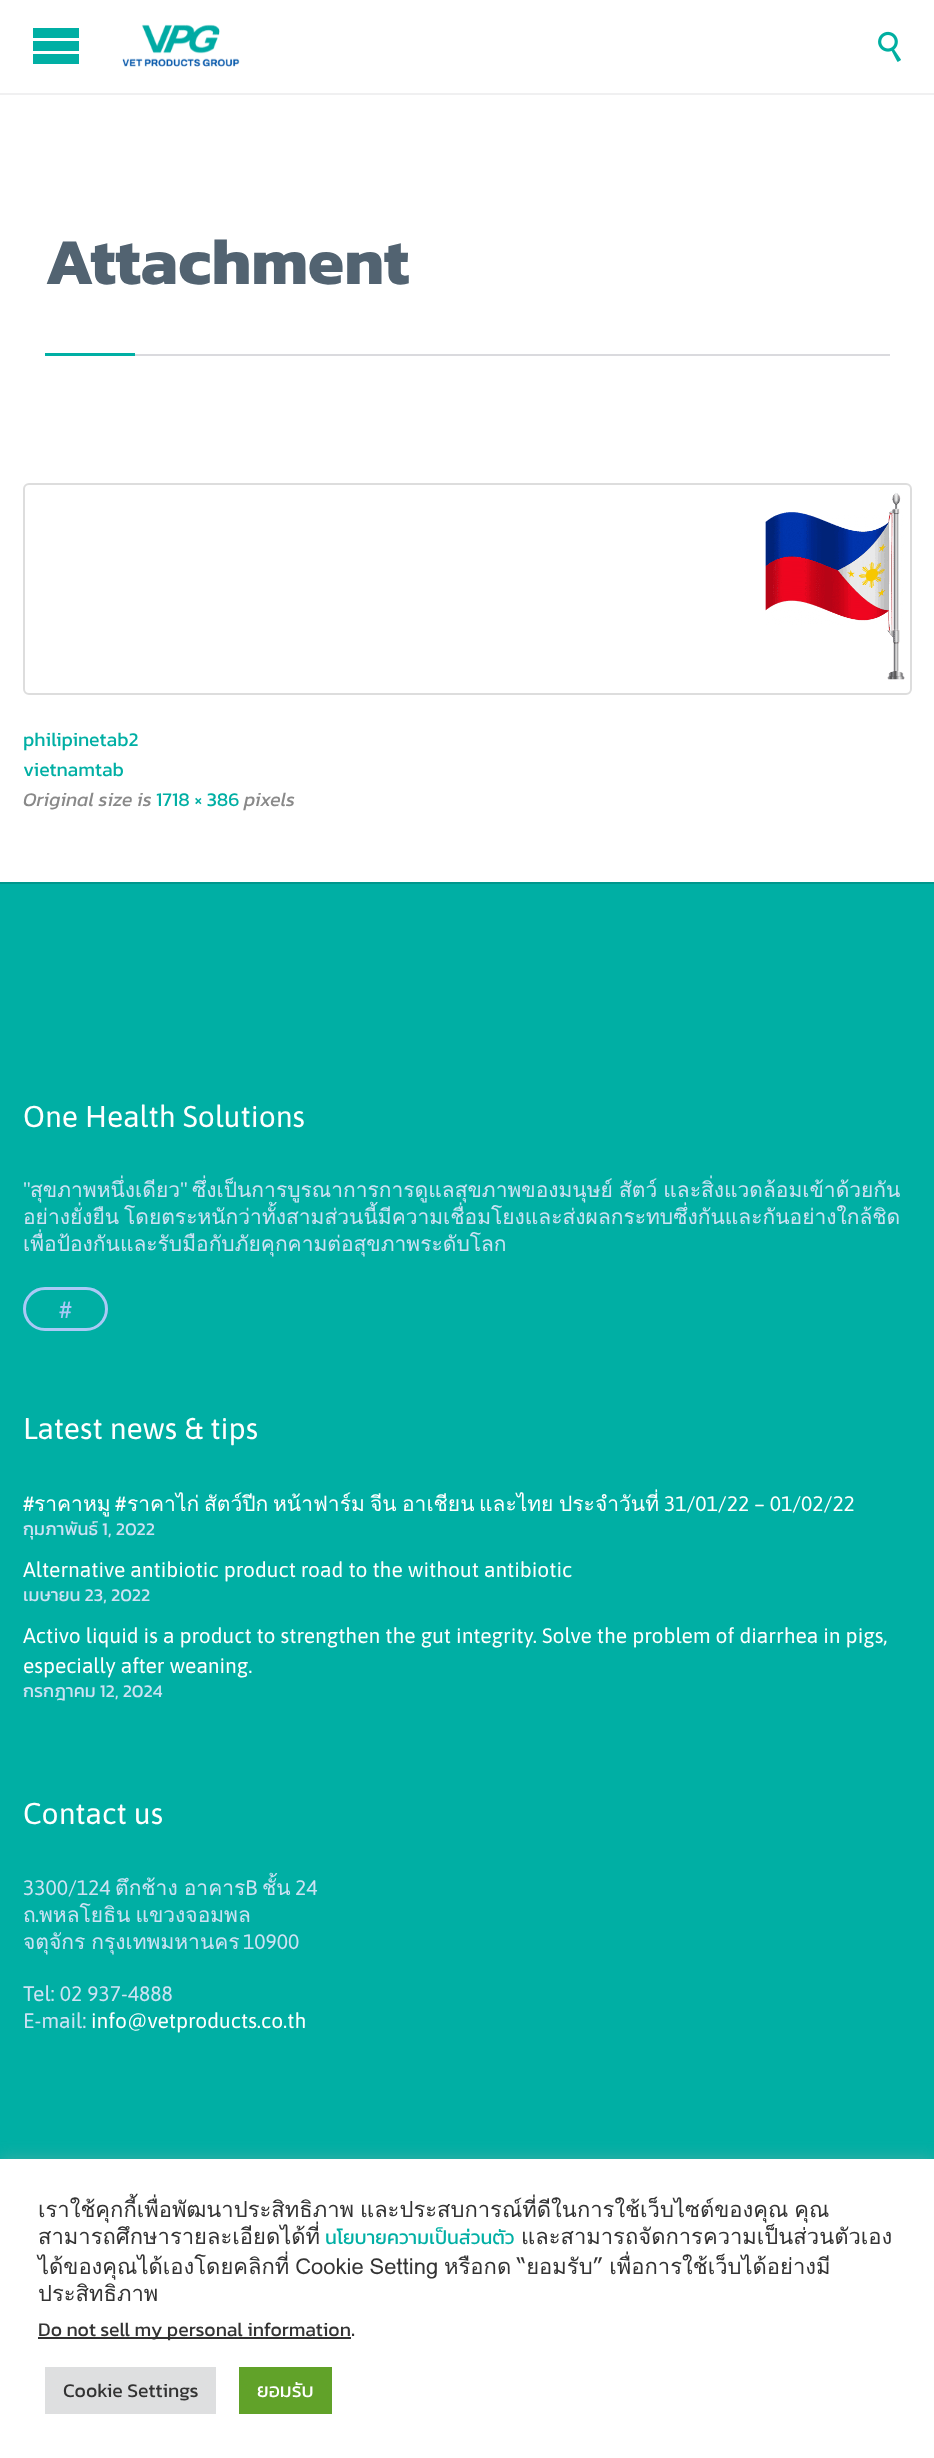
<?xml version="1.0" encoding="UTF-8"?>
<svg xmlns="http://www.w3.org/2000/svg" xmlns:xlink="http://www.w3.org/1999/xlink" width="934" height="2458">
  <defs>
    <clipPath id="clip1"><rect x="23" y="1488" width="889" height="66" /></clipPath>
  </defs>
  <rect width="100%" height="100%" fill="#00afa4" />
  <rect width="934" height="93" fill="#ffffff" />
  <path d="M 33 28 h 46 v 10 h -46 z m 0 13 h 46 v 10 h -46 z m 0 13 h 46 v 10 h -46 z" fill="#00afa4" />
  <rect y="93" width="934" height="2" fill="#f0f0f1" />
  <image x="122" y="24" width="118" height="43" xlink:href="image1.png" />
  <image x="878" y="31" width="23" height="31" xlink:href="image2.png" />
  <rect y="95" width="934" height="787" fill="#ffffff" />
  <rect x="135" y="354" width="755" height="2" fill="#dadade" />
  <rect x="45" y="353" width="90" height="3" fill="#00afa4" />
  <rect x="24" y="484" width="887" height="210" rx="5" fill="none" stroke="#dddddd" stroke-width="2" />
  <image x="765" y="492" width="140" height="188" xlink:href="image3.png" />
  <rect y="882" width="934" height="2" fill="#00968c" />
  <rect x="24.5" y="1288.5" width="82" height="41" rx="20.5" fill="none" stroke="#aac9f6" stroke-width="3" />
  <rect y="2157" width="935" height="300" fill="#acabab" fill-opacity="0.3" filter="blur(7.5px)" />
  <rect y="2159" width="934" height="299" fill="#ffffff" />
  <rect x="38" y="2337" width="313" height="2" fill="#333333" />
  <rect x="45" y="2367" width="171" height="47" fill="#dedfe0" />
  <rect x="239" y="2367" width="93" height="47" fill="#61a229" />
  <text x="45" y="284" style="font-family: Kanit; font-size: 66px; font-weight: bold; fill: #526371">Attachment</text>
  <text x="23" y="746" style="font-family: Kanit; font-size: 19.5px; fill: #00afa4">philipinetab2</text>
  <text x="23" y="776" style="font-family: Kanit; font-size: 19.5px; fill: #00afa4">vietnamtab</text>
  <text x="23" y="806" style="font-family: Kanit; font-size: 19.5px; font-style: italic; fill: #898989">Original size is</text>
  <text x="156" y="806" style="font-family: Kanit; font-size: 19.5px; fill: #00afa4">1718 × 386</text>
  <text x="244" y="806" style="font-family: Kanit; font-size: 19.5px; font-style: italic; fill: #898989">pixels</text>
  <text x="23" y="1127" style="font-family: Asap; font-size: 30px; fill: #ffffff">One Health Solutions</text>
  <text x="23" y="1197" style="font-family: Asap; font-size: 21px; fill: #cde2f4">"</text>
  <text x="30" y="1197" style="font-family: Loma; font-size: 21px; fill: #cde2f4">สุขภาพหนึ่งเดียว</text>
  <text x="180" y="1197" style="font-family: Asap; font-size: 21px; fill: #cde2f4">"</text>
  <text x="192" y="1197" word-spacing="-1" style="font-family: Loma; font-size: 21px; fill: #cde2f4">ซึ่งเป็นการบูรณาการการดูแลสุขภาพของมนุษย์ สัตว์ และสิ่งแวดล้อมเข้าด้วยกัน</text>
  <text x="23" y="1224" style="font-family: Loma; font-size: 21px; fill: #cde2f4">อย่างยั่งยืน</text>
  <text x="124" y="1224" style="font-family: Loma; font-size: 21px; fill: #cde2f4">โดยตระหนักว่าทั้งสามส่วนนี้มีความเชื่อมโยงและส่งผลกระทบซึ่งกันและกันอย่างใกล้ชิด</text>
  <text x="23" y="1251" style="font-family: Loma; font-size: 21px; fill: #cde2f4">เพื่อป้องกันและรับมือกับภัยคุกคามต่อสุขภาพระดับโลก</text>
  <text x="59" y="1318" style="font-family: Asap; font-size: 24px; fill: #aac9f6">#</text>
  <text x="23" y="1439" style="font-family: Asap; font-size: 30px; fill: #ffffff">Latest news &amp; tips</text>
  <text x="23" y="1511" style="font-family: Asap; font-size: 21px; fill: #ffffff">#</text>
  <text x="34" y="1511" style="font-family: Loma; font-size: 21px; fill: #ffffff">ราคาหมู</text>
  <text x="115" y="1511" style="font-family: Asap; font-size: 21px; fill: #ffffff">#</text>
  <text x="127" y="1511" style="font-family: Loma; font-size: 21px; fill: #ffffff">ราคาไก่</text>
  <text x="204" y="1511" style="font-family: Loma; font-size: 21px; fill: #ffffff">สัตว์ปีก</text>
  <text x="273" y="1511" style="font-family: Loma; font-size: 21px; fill: #ffffff">หน้าฟาร์ม</text>
  <text x="370" y="1511" style="font-family: Loma; font-size: 21px; fill: #ffffff">จีน</text>
  <text x="402" y="1511" style="font-family: Loma; font-size: 21px; fill: #ffffff">อาเชียน</text>
  <text x="479" y="1511" style="font-family: Loma; font-size: 21px; fill: #ffffff">และไทย</text>
  <text x="559" y="1511" style="font-family: Loma; font-size: 21px; fill: #ffffff">ประจำวันที่</text>
  <text x="664" y="1511" style="font-family: Asap; font-size: 21px; fill: #ffffff">31/01/22 – 01/02/22</text>
  <g clip-path="url(#clip1)">
    <text x="23" y="1535" style="font-family: Kanit; font-size: 18px; fill: #cde2f4">กุมภาพันธ์ 1, 2022</text>
  </g>
  <text x="23" y="1577" style="font-family: Asap; font-size: 21px; fill: #ffffff">Alternative antibiotic product road to the without antibiotic</text>
  <text x="23" y="1601" style="font-family: Kanit; font-size: 18px; fill: #cde2f4">เมษายน 23, 2022</text>
  <text x="23" y="1643" style="font-family: Asap; font-size: 21px; fill: #ffffff">Activo liquid is a product to strengthen the gut integrity. Solve the problem of diarrhea in pigs,</text>
  <text x="23" y="1673" style="font-family: Asap; font-size: 21px; fill: #ffffff">especially after weaning.</text>
  <text x="23" y="1697" style="font-family: Kanit; font-size: 18px; fill: #cde2f4">กรกฎาคม 12, 2024</text>
  <text x="23" y="1824" style="font-family: Asap; font-size: 30px; fill: #ffffff">Contact us</text>
  <text x="23" y="1895" style="font-family: Asap; font-size: 21px; fill: #cde2f4">3300/124</text>
  <text x="115" y="1895" word-spacing="-1" style="font-family: Loma; font-size: 21px; fill: #cde2f4">ตึกช้าง อาคาร</text>
  <text x="245" y="1895" style="font-family: Asap; font-size: 21px; fill: #cde2f4">B</text>
  <text x="262" y="1895" style="font-family: Loma; font-size: 21px; fill: #cde2f4">ชั้น</text>
  <text x="295" y="1895" style="font-family: Asap; font-size: 21px; fill: #cde2f4">24</text>
  <text x="23" y="1922" style="font-family: Loma; font-size: 21px; fill: #cde2f4">ถ</text>
  <text x="35" y="1922" style="font-family: Asap; font-size: 21px; fill: #cde2f4">.</text>
  <text x="39" y="1922" word-spacing="-2" style="font-family: Loma; font-size: 21px; fill: #cde2f4">พหลโยธิน แขวงจอมพล</text>
  <text x="23" y="1949" word-spacing="-1" style="font-family: Loma; font-size: 21px; fill: #cde2f4">จตุจักร กรุงเทพมหานคร</text>
  <text x="243" y="1949" style="font-family: Asap; font-size: 21px; fill: #cde2f4">10900</text>
  <text x="23" y="2001" style="font-family: Asap; font-size: 21px; fill: #cde2f4">Tel: 02 937-4888</text>
  <text x="23" y="2028" style="font-family: Asap; font-size: 21px; fill: #cde2f4">E-mail:</text>
  <text x="91" y="2028" style="font-family: Asap; font-size: 21px; fill: #ffffff">info@vetproducts.co.th</text>
  <text x="38" y="2217" word-spacing="-1.5" style="font-family: Loma; font-size: 22px; fill: #333333">เราใช้คุกกี้เพื่อพัฒนาประสิทธิภาพ และประสบการณ์ที่ดีในการใช้เว็บไซต์ของคุณ คุณ</text>
  <text x="38" y="2244" style="font-family: Loma; font-size: 22px; fill: #333333">สามารถศึกษารายละเอียดได้ที่</text>
  <text x="325" y="2244" style="font-family: Kanit; font-size: 19.5px; fill: #00afa4">นโยบายความเป็นส่วนตัว</text>
  <text x="521" y="2244" style="font-family: Loma; font-size: 22px; fill: #333333">และสามารถจัดการความเป็นส่วนตัวเอง</text>
  <text x="38" y="2274" word-spacing="-1.5" style="font-family: Loma; font-size: 22px; fill: #333333">ได้ของคุณได้เองโดยคลิกที่ Cookie Setting หรือกด “ยอมรับ” เพื่อการใช้เว็บได้อย่างมี</text>
  <text x="38" y="2301" style="font-family: Loma; font-size: 22px; fill: #333333">ประสิทธิภาพ</text>
  <text x="38" y="2336" style="font-family: Kanit; font-size: 19.5px; fill: #333333">Do not sell my personal information</text>
  <text x="350" y="2336" style="font-family: Liberation Sans; font-size: 22px; fill: #333333">.</text>
  <text x="63" y="2397" style="font-family: Kanit; font-size: 19.5px; fill: #333333">Cookie Settings</text>
  <text x="257" y="2397" style="font-family: Kanit; font-size: 19.5px; fill: #ffffff">ยอมรับ</text>
</svg>
